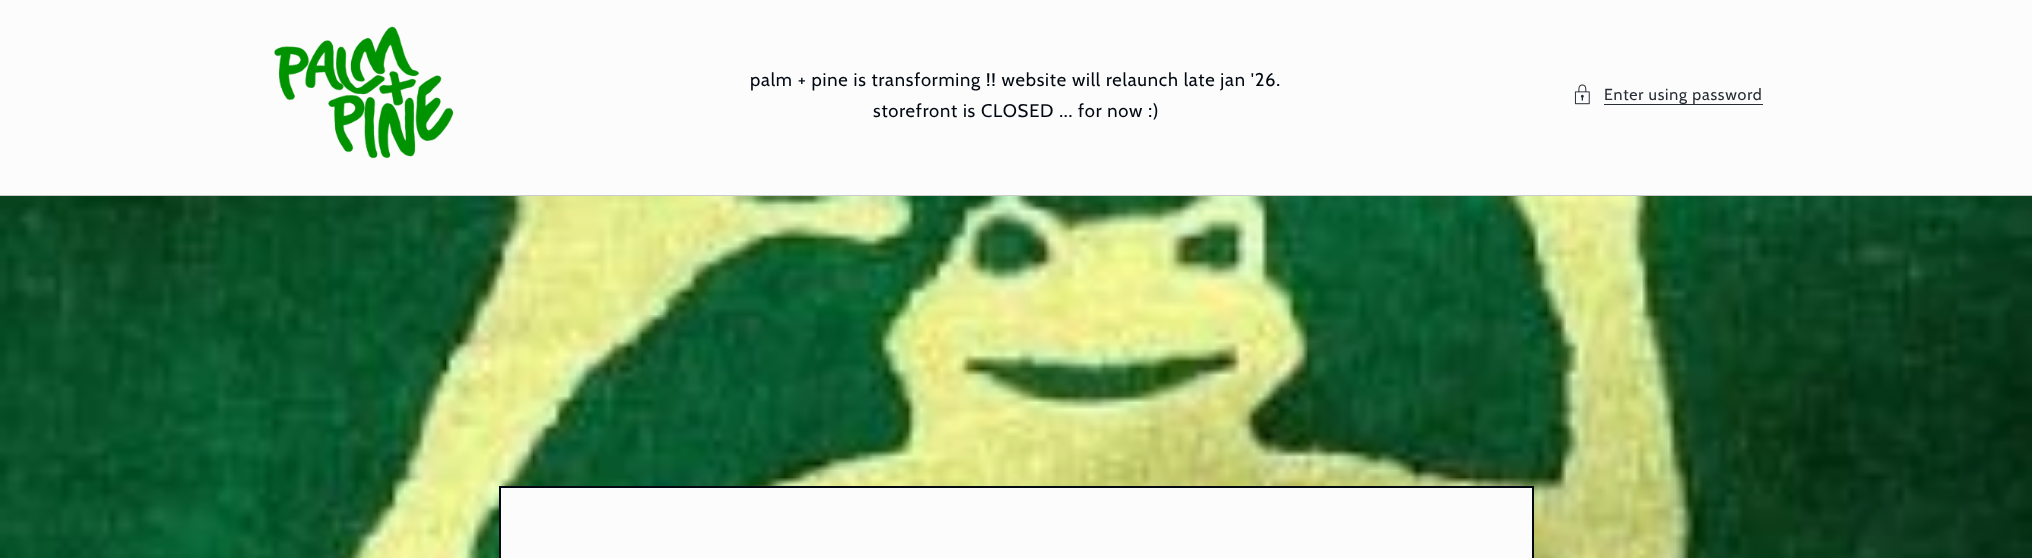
<?xml version="1.0" encoding="UTF-8"?>
<svg xmlns="http://www.w3.org/2000/svg" xmlns:xlink="http://www.w3.org/1999/xlink" width="2032" height="558">
  <rect width="100%" height="100%" fill="#fcfcfc" />
  <image x="274" y="26" width="180" height="133" xlink:href="image1.png" />
  <image x="1574" y="84" width="16" height="21" xlink:href="image2.png" />
  <rect x="1604" y="104" width="159" height="1" fill="#282d35" />
  <rect y="195" width="2032" height="1" fill="#cacbcd" />
  <image x="0" y="196" width="2032" height="362" xlink:href="image3.png" />
  <rect x="500" y="487" width="1033" height="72" fill="#fcfcfc" stroke="#020912" stroke-width="2" />
  <text x="750" y="86" style="font-family: Cabin; font-size: 18.4px; letter-spacing: 0.8px; fill: #020912">palm + pine is transforming !! website will relaunch late jan '26.</text>
  <text x="873" y="117" style="font-family: Cabin; font-size: 18.4px; letter-spacing: 0.8px; fill: #020912">storefront is CLOSED ... for now :)</text>
  <text x="1604" y="100" style="font-family: Cabin; font-size: 16px; letter-spacing: 0.8px; fill: #282d35">Enter using password</text>
</svg>
